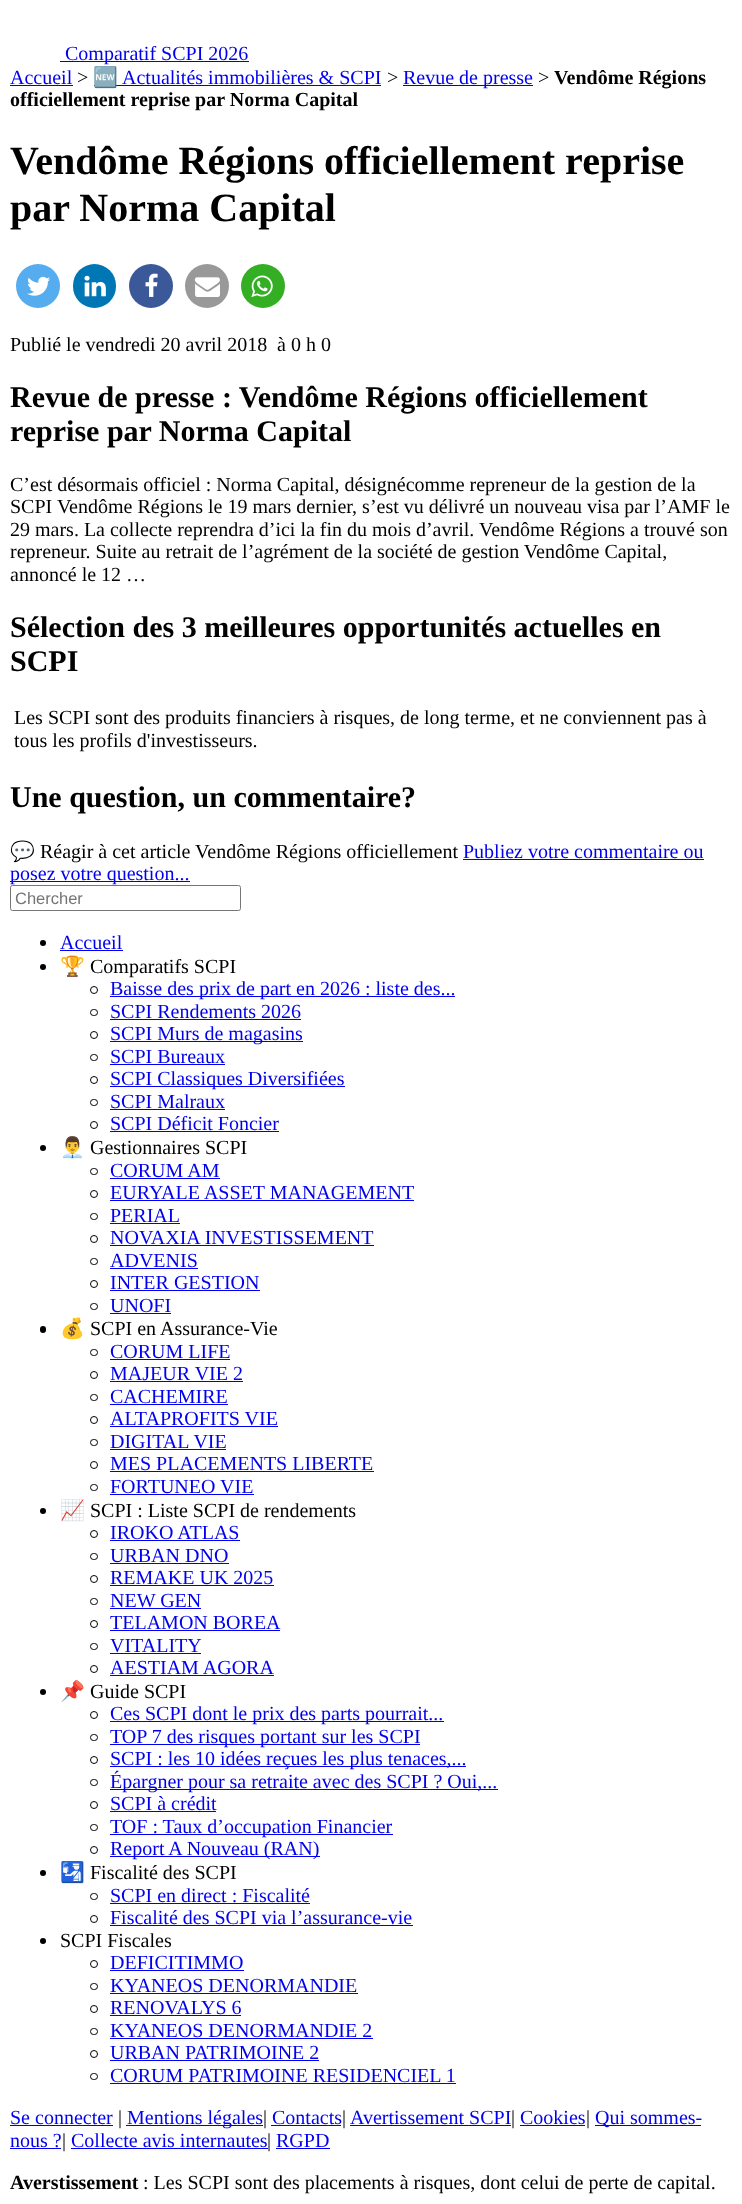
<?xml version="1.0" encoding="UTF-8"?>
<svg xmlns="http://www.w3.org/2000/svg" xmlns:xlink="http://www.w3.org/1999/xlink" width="742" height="2204">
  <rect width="100%" height="100%" fill="#ffffff" />
  <rect x="60" y="61" width="189" height="1" fill="#0000ee" />
  <rect x="10" y="85" width="63" height="1" fill="#0000ee" />
  <rect x="94" y="85" width="287" height="1" fill="#0000ee" />
  <rect x="403" y="85" width="130" height="1" fill="#0000ee" />
  <circle cx="38" cy="286" r="22" fill="#55acee" />
  <image x="27" y="276" width="23" height="20" xlink:href="image1.png" />
  <rect x="73" y="264" width="43" height="44" rx="21.5" fill="#0077b5" />
  <image x="84" y="275" width="22" height="22" xlink:href="image2.png" />
  <circle cx="151" cy="286" r="22" fill="#3b5998" />
  <image x="145" y="273" width="13" height="24" xlink:href="image3.png" />
  <circle cx="207" cy="286" r="22" fill="#999999" />
  <image x="194" y="277" width="26" height="20" xlink:href="image4.png" />
  <circle cx="263" cy="286" r="22" fill="#34af23" />
  <image x="251" y="275" width="22" height="22" xlink:href="image5.png" />
  <rect x="463" y="859" width="241" height="1" fill="#0000ee" />
  <rect x="10" y="881" width="180" height="1" fill="#0000ee" />
  <rect x="10.5" y="885.5" width="230" height="25" rx="2" fill="none" stroke="#767676" />
  <circle cx="43" cy="943" r="3" fill="#000000" />
  <rect x="60" y="950" width="63" height="1" fill="#0000ee" />
  <circle cx="43" cy="967" r="3" fill="#000000" />
  <circle cx="94" cy="990" r="3.5" fill="none" stroke="#000000" />
  <rect x="110" y="996" width="345" height="1" fill="#0000ee" />
  <rect x="90.5" y="1009.5" width="7" height="6" rx="3" fill="none" stroke="#000000" />
  <rect x="110" y="1019" width="191" height="1" fill="#0000ee" />
  <circle cx="94" cy="1035" r="3.5" fill="none" stroke="#000000" />
  <rect x="110" y="1041" width="193" height="1" fill="#0000ee" />
  <rect x="90.5" y="1054.5" width="7" height="6" rx="3" fill="none" stroke="#000000" />
  <rect x="110" y="1064" width="115" height="1" fill="#0000ee" />
  <circle cx="94" cy="1080" r="3.5" fill="none" stroke="#000000" />
  <rect x="110" y="1086" width="235" height="1" fill="#0000ee" />
  <rect x="90.5" y="1099.5" width="7" height="6" rx="3" fill="none" stroke="#000000" />
  <rect x="110" y="1109" width="115" height="1" fill="#0000ee" />
  <circle cx="94" cy="1125" r="3.5" fill="none" stroke="#000000" />
  <rect x="110" y="1131" width="169" height="1" fill="#0000ee" />
  <circle cx="43" cy="1148" r="3" fill="#000000" />
  <rect x="90.5" y="1168.5" width="7" height="6" rx="3" fill="none" stroke="#000000" />
  <rect x="110" y="1178" width="110" height="1" fill="#0000ee" />
  <circle cx="94" cy="1194" r="3.5" fill="none" stroke="#000000" />
  <rect x="110" y="1200" width="304" height="1" fill="#0000ee" />
  <rect x="90.5" y="1213.5" width="7" height="6" rx="3" fill="none" stroke="#000000" />
  <rect x="110" y="1223" width="70" height="1" fill="#0000ee" />
  <circle cx="94" cy="1239" r="3.5" fill="none" stroke="#000000" />
  <rect x="110" y="1245" width="264" height="1" fill="#0000ee" />
  <rect x="90.5" y="1258.5" width="7" height="6" rx="3" fill="none" stroke="#000000" />
  <rect x="110" y="1268" width="88" height="1" fill="#0000ee" />
  <circle cx="94" cy="1284" r="3.5" fill="none" stroke="#000000" />
  <rect x="110" y="1290" width="150" height="1" fill="#0000ee" />
  <rect x="90.5" y="1303.5" width="7" height="6" rx="3" fill="none" stroke="#000000" />
  <rect x="110" y="1313" width="61" height="1" fill="#0000ee" />
  <rect x="40" y="1326" width="6" height="7" rx="3" fill="#000000" />
  <rect x="90.5" y="1349.5" width="7" height="6" rx="3" fill="none" stroke="#000000" />
  <rect x="110" y="1359" width="120" height="1" fill="#0000ee" />
  <circle cx="94" cy="1375" r="3.5" fill="none" stroke="#000000" />
  <rect x="110" y="1381" width="133" height="1" fill="#0000ee" />
  <rect x="90.5" y="1394.5" width="7" height="6" rx="3" fill="none" stroke="#000000" />
  <rect x="110" y="1404" width="118" height="1" fill="#0000ee" />
  <circle cx="94" cy="1420" r="3.5" fill="none" stroke="#000000" />
  <rect x="110" y="1426" width="168" height="1" fill="#0000ee" />
  <rect x="90.5" y="1439.5" width="7" height="6" rx="3" fill="none" stroke="#000000" />
  <rect x="110" y="1449" width="116" height="1" fill="#0000ee" />
  <circle cx="94" cy="1465" r="3.5" fill="none" stroke="#000000" />
  <rect x="110" y="1471" width="264" height="1" fill="#0000ee" />
  <rect x="90.5" y="1484.5" width="7" height="6" rx="3" fill="none" stroke="#000000" />
  <rect x="110" y="1494" width="144" height="1" fill="#0000ee" />
  <circle cx="43" cy="1511" r="3" fill="#000000" />
  <circle cx="94" cy="1534" r="3.5" fill="none" stroke="#000000" />
  <rect x="110" y="1540" width="130" height="1" fill="#0000ee" />
  <rect x="90.5" y="1553.5" width="7" height="6" rx="3" fill="none" stroke="#000000" />
  <rect x="110" y="1563" width="119" height="1" fill="#0000ee" />
  <circle cx="94" cy="1579" r="3.5" fill="none" stroke="#000000" />
  <rect x="110" y="1585" width="164" height="1" fill="#0000ee" />
  <rect x="90.5" y="1598.5" width="7" height="6" rx="3" fill="none" stroke="#000000" />
  <rect x="110" y="1608" width="91" height="1" fill="#0000ee" />
  <circle cx="94" cy="1624" r="3.5" fill="none" stroke="#000000" />
  <rect x="110" y="1630" width="170" height="1" fill="#0000ee" />
  <rect x="90.5" y="1643.5" width="7" height="6" rx="3" fill="none" stroke="#000000" />
  <rect x="110" y="1653" width="91" height="1" fill="#0000ee" />
  <circle cx="94" cy="1669" r="3.5" fill="none" stroke="#000000" />
  <rect x="110" y="1675" width="164" height="1" fill="#0000ee" />
  <circle cx="43" cy="1692" r="3" fill="#000000" />
  <circle cx="94" cy="1715" r="3.5" fill="none" stroke="#000000" />
  <rect x="110" y="1721" width="334" height="1" fill="#0000ee" />
  <rect x="90.5" y="1734.5" width="7" height="6" rx="3" fill="none" stroke="#000000" />
  <rect x="110" y="1744" width="310" height="1" fill="#0000ee" />
  <circle cx="94" cy="1760" r="3.5" fill="none" stroke="#000000" />
  <rect x="110" y="1766" width="356" height="1" fill="#0000ee" />
  <rect x="90.5" y="1779.5" width="7" height="6" rx="3" fill="none" stroke="#000000" />
  <rect x="110" y="1789" width="388" height="1" fill="#0000ee" />
  <circle cx="94" cy="1805" r="3.5" fill="none" stroke="#000000" />
  <rect x="110" y="1811" width="106" height="1" fill="#0000ee" />
  <rect x="90.5" y="1824.5" width="7" height="6" rx="3" fill="none" stroke="#000000" />
  <rect x="110" y="1834" width="283" height="1" fill="#0000ee" />
  <circle cx="94" cy="1850" r="3.5" fill="none" stroke="#000000" />
  <rect x="110" y="1856" width="210" height="1" fill="#0000ee" />
  <circle cx="43" cy="1873" r="3" fill="#000000" />
  <rect x="90.5" y="1893.5" width="7" height="6" rx="3" fill="none" stroke="#000000" />
  <rect x="110" y="1903" width="200" height="1" fill="#0000ee" />
  <circle cx="94" cy="1919" r="3.5" fill="none" stroke="#000000" />
  <rect x="110" y="1925" width="303" height="1" fill="#0000ee" />
  <circle cx="43" cy="1941" r="3" fill="#000000" />
  <circle cx="94" cy="1964" r="3.5" fill="none" stroke="#000000" />
  <rect x="110" y="1970" width="134" height="1" fill="#0000ee" />
  <rect x="90.5" y="1983.5" width="7" height="6" rx="3" fill="none" stroke="#000000" />
  <rect x="110" y="1993" width="248" height="1" fill="#0000ee" />
  <circle cx="94" cy="2009" r="3.5" fill="none" stroke="#000000" />
  <rect x="110" y="2015" width="131" height="1" fill="#0000ee" />
  <rect x="90.5" y="2028.5" width="7" height="6" rx="3" fill="none" stroke="#000000" />
  <rect x="110" y="2038" width="263" height="1" fill="#0000ee" />
  <circle cx="94" cy="2054" r="3.5" fill="none" stroke="#000000" />
  <rect x="110" y="2060" width="209" height="1" fill="#0000ee" />
  <rect x="90.5" y="2073.5" width="7" height="6" rx="3" fill="none" stroke="#000000" />
  <rect x="110" y="2083" width="346" height="1" fill="#0000ee" />
  <rect x="10" y="2125" width="103" height="1" fill="#0000ee" />
  <rect x="126" y="2125" width="137" height="1" fill="#0000ee" />
  <rect x="271" y="2125" width="70" height="1" fill="#0000ee" />
  <rect x="350" y="2125" width="161" height="1" fill="#0000ee" />
  <rect x="520" y="2125" width="65" height="1" fill="#0000ee" />
  <rect x="595" y="2125" width="106" height="1" fill="#0000ee" />
  <rect x="10" y="2148" width="51" height="1" fill="#0000ee" />
  <rect x="71" y="2148" width="197" height="1" fill="#0000ee" />
  <rect x="276" y="2148" width="54" height="1" fill="#0000ee" />
  <text x="65" y="60" style="font-family: Liberation Serif; font-size: 20px; fill: #0000ee">Comparatif SCPI 2026</text>
  <text x="10" y="84" style="font-family: Liberation Serif; font-size: 20px; fill: #0000ee">Accueil</text>
  <text x="77" y="84" style="font-family: Liberation Serif; font-size: 20px; fill: #000000">&gt;</text>
  <text x="93" y="84" style="font-family: Noto Color Emoji; font-size: 20px; fill: #0000ee">🆕</text>
  <text x="122" y="84" style="font-family: Liberation Serif; font-size: 20px; fill: #0000ee">Actualités immobilières &amp; SCPI</text>
  <text x="387" y="84" style="font-family: Liberation Serif; font-size: 20px; fill: #000000">&gt;</text>
  <text x="403" y="84" style="font-family: Liberation Serif; font-size: 20px; fill: #0000ee">Revue de presse</text>
  <text x="538" y="84" style="font-family: Liberation Serif; font-size: 20px; fill: #000000">&gt;</text>
  <text x="554" y="84" style="font-family: Liberation Serif; font-size: 20px; font-weight: bold; fill: #000000">Vendôme Régions</text>
  <text x="10" y="106" style="font-family: Liberation Serif; font-size: 20px; font-weight: bold; fill: #000000">officiellement reprise par Norma Capital</text>
  <text x="10" y="174" style="font-family: Liberation Serif; font-size: 40px; font-weight: bold; fill: #000000">Vendôme Régions officiellement reprise</text>
  <text x="10" y="221" style="font-family: Liberation Serif; font-size: 40px; font-weight: bold; fill: #000000">par Norma Capital</text>
  <text x="10" y="351" style="font-family: Liberation Serif; font-size: 20px; fill: #000000">Publié le vendredi 20 avril 2018</text>
  <text x="277" y="351" style="font-family: Liberation Serif; font-size: 20px; fill: #000000">à 0 h 0</text>
  <text x="10" y="407" style="font-family: Liberation Serif; font-size: 30px; font-weight: bold; fill: #000000">Revue de presse : Vendôme Régions officiellement</text>
  <text x="10" y="441" style="font-family: Liberation Serif; font-size: 30px; font-weight: bold; fill: #000000">reprise par Norma Capital</text>
  <text x="10" y="491" style="font-family: Liberation Serif; font-size: 20px; fill: #000000">C’est désormais officiel : Norma Capital, désignécomme repreneur de la gestion de la</text>
  <text x="10" y="513" style="font-family: Liberation Serif; font-size: 20px; fill: #000000">SCPI Vendôme Régions le 19 mars dernier, s’est vu délivré un nouveau visa par l’AMF le</text>
  <text x="10" y="536" style="font-family: Liberation Serif; font-size: 20px; fill: #000000">29 mars. La collecte reprendra d’ici la fin du mois d’avril. Vendôme Régions a trouvé son</text>
  <text x="10" y="558" style="font-family: Liberation Serif; font-size: 20px; fill: #000000">repreneur. Suite au retrait de l’agrément de la société de gestion Vendôme Capital,</text>
  <text x="10" y="581" style="font-family: Liberation Serif; font-size: 20px; fill: #000000">annoncé le 12 …</text>
  <text x="10" y="637" style="font-family: Liberation Serif; font-size: 30px; font-weight: bold; fill: #000000">Sélection des 3 meilleures opportunités actuelles en</text>
  <text x="10" y="671" style="font-family: Liberation Serif; font-size: 30px; font-weight: bold; fill: #000000">SCPI</text>
  <text x="14" y="724" style="font-family: Liberation Serif; font-size: 20px; fill: #000000">Les SCPI sont des produits financiers à risques, de long terme, et ne conviennent pas à</text>
  <text x="14" y="747" style="font-family: Liberation Serif; font-size: 20px; fill: #000000">tous les profils d'investisseurs.</text>
  <text x="10" y="807" style="font-family: Liberation Serif; font-size: 30px; font-weight: bold; fill: #000000">Une question, un commentaire?</text>
  <text x="10" y="858" style="font-family: Noto Color Emoji; font-size: 20px; fill: #000000">💬</text>
  <text x="40" y="858" style="font-family: Liberation Serif; font-size: 20px; fill: #000000">Réagir à cet article Vendôme Régions officiellement</text>
  <text x="463" y="858" style="font-family: Liberation Serif; font-size: 20px; fill: #0000ee">Publiez votre commentaire ou</text>
  <text x="10" y="880" style="font-family: Liberation Serif; font-size: 20px; fill: #0000ee">posez votre question...</text>
  <text x="15" y="904" style="font-family: Liberation Sans; font-size: 16.5px; fill: #757575">Chercher</text>
  <text x="60" y="949" style="font-family: Liberation Serif; font-size: 20px; fill: #0000ee">Accueil</text>
  <text x="60" y="973" style="font-family: Noto Color Emoji; font-size: 20px; fill: #000000">🏆</text>
  <text x="90" y="973" style="font-family: Liberation Serif; font-size: 20px; fill: #000000">Comparatifs SCPI</text>
  <text x="110" y="995" style="font-family: Liberation Serif; font-size: 20px; fill: #0000ee">Baisse des prix de part en 2026 : liste des...</text>
  <text x="110" y="1018" style="font-family: Liberation Serif; font-size: 20px; fill: #0000ee">SCPI Rendements 2026</text>
  <text x="110" y="1040" style="font-family: Liberation Serif; font-size: 20px; fill: #0000ee">SCPI Murs de magasins</text>
  <text x="110" y="1063" style="font-family: Liberation Serif; font-size: 20px; fill: #0000ee">SCPI Bureaux</text>
  <text x="110" y="1085" style="font-family: Liberation Serif; font-size: 20px; fill: #0000ee">SCPI Classiques Diversifiées</text>
  <text x="110" y="1108" style="font-family: Liberation Serif; font-size: 20px; fill: #0000ee">SCPI Malraux</text>
  <text x="110" y="1130" style="font-family: Liberation Serif; font-size: 20px; fill: #0000ee">SCPI Déficit Foncier</text>
  <text x="60" y="1154" style="font-family: Noto Color Emoji; font-size: 20px; fill: #000000">👨‍💼</text>
  <text x="90" y="1154" style="font-family: Liberation Serif; font-size: 20px; fill: #000000">Gestionnaires SCPI</text>
  <text x="110" y="1177" style="font-family: Liberation Serif; font-size: 20px; fill: #0000ee">CORUM AM</text>
  <text x="110" y="1199" style="font-family: Liberation Serif; font-size: 20px; fill: #0000ee">EURYALE ASSET MANAGEMENT</text>
  <text x="110" y="1222" style="font-family: Liberation Serif; font-size: 20px; fill: #0000ee">PERIAL</text>
  <text x="110" y="1244" style="font-family: Liberation Serif; font-size: 20px; fill: #0000ee">NOVAXIA INVESTISSEMENT</text>
  <text x="110" y="1267" style="font-family: Liberation Serif; font-size: 20px; fill: #0000ee">ADVENIS</text>
  <text x="110" y="1289" style="font-family: Liberation Serif; font-size: 20px; fill: #0000ee">INTER GESTION</text>
  <text x="110" y="1312" style="font-family: Liberation Serif; font-size: 20px; fill: #0000ee">UNOFI</text>
  <text x="60" y="1335" style="font-family: Noto Color Emoji; font-size: 20px; fill: #000000">💰</text>
  <text x="90" y="1335" style="font-family: Liberation Serif; font-size: 20px; fill: #000000">SCPI en Assurance-Vie</text>
  <text x="110" y="1358" style="font-family: Liberation Serif; font-size: 20px; fill: #0000ee">CORUM LIFE</text>
  <text x="110" y="1380" style="font-family: Liberation Serif; font-size: 20px; fill: #0000ee">MAJEUR VIE 2</text>
  <text x="110" y="1403" style="font-family: Liberation Serif; font-size: 20px; fill: #0000ee">CACHEMIRE</text>
  <text x="110" y="1425" style="font-family: Liberation Serif; font-size: 20px; fill: #0000ee">ALTAPROFITS VIE</text>
  <text x="110" y="1448" style="font-family: Liberation Serif; font-size: 20px; fill: #0000ee">DIGITAL VIE</text>
  <text x="110" y="1470" style="font-family: Liberation Serif; font-size: 20px; fill: #0000ee">MES PLACEMENTS LIBERTE</text>
  <text x="110" y="1493" style="font-family: Liberation Serif; font-size: 20px; fill: #0000ee">FORTUNEO VIE</text>
  <text x="60" y="1517" style="font-family: Noto Color Emoji; font-size: 20px; fill: #000000">📈</text>
  <text x="90" y="1517" style="font-family: Liberation Serif; font-size: 20px; fill: #000000">SCPI : Liste SCPI de rendements</text>
  <text x="110" y="1539" style="font-family: Liberation Serif; font-size: 20px; fill: #0000ee">IROKO ATLAS</text>
  <text x="110" y="1562" style="font-family: Liberation Serif; font-size: 20px; fill: #0000ee">URBAN DNO</text>
  <text x="110" y="1584" style="font-family: Liberation Serif; font-size: 20px; fill: #0000ee">REMAKE UK 2025</text>
  <text x="110" y="1607" style="font-family: Liberation Serif; font-size: 20px; fill: #0000ee">NEW GEN</text>
  <text x="110" y="1629" style="font-family: Liberation Serif; font-size: 20px; fill: #0000ee">TELAMON BOREA</text>
  <text x="110" y="1652" style="font-family: Liberation Serif; font-size: 20px; fill: #0000ee">VITALITY</text>
  <text x="110" y="1674" style="font-family: Liberation Serif; font-size: 20px; fill: #0000ee">AESTIAM AGORA</text>
  <text x="60" y="1698" style="font-family: Noto Color Emoji; font-size: 20px; fill: #000000">📌</text>
  <text x="90" y="1698" style="font-family: Liberation Serif; font-size: 20px; fill: #000000">Guide SCPI</text>
  <text x="110" y="1720" style="font-family: Liberation Serif; font-size: 20px; fill: #0000ee">Ces SCPI dont le prix des parts pourrait...</text>
  <text x="110" y="1743" style="font-family: Liberation Serif; font-size: 20px; fill: #0000ee">TOP 7 des risques portant sur les SCPI</text>
  <text x="110" y="1765" style="font-family: Liberation Serif; font-size: 20px; fill: #0000ee">SCPI : les 10 idées reçues les plus tenaces,...</text>
  <text x="110" y="1788" style="font-family: Liberation Serif; font-size: 20px; fill: #0000ee">Épargner pour sa retraite avec des SCPI ? Oui,...</text>
  <text x="110" y="1810" style="font-family: Liberation Serif; font-size: 20px; fill: #0000ee">SCPI à crédit</text>
  <text x="110" y="1833" style="font-family: Liberation Serif; font-size: 20px; fill: #0000ee">TOF : Taux d’occupation Financier</text>
  <text x="110" y="1855" style="font-family: Liberation Serif; font-size: 20px; fill: #0000ee">Report A Nouveau (RAN)</text>
  <text x="60" y="1879" style="font-family: Noto Color Emoji; font-size: 20px; fill: #000000">🛂</text>
  <text x="90" y="1879" style="font-family: Liberation Serif; font-size: 20px; fill: #000000">Fiscalité des SCPI</text>
  <text x="110" y="1902" style="font-family: Liberation Serif; font-size: 20px; fill: #0000ee">SCPI en direct : Fiscalité</text>
  <text x="110" y="1924" style="font-family: Liberation Serif; font-size: 20px; fill: #0000ee">Fiscalité des SCPI via l’assurance-vie</text>
  <text x="60" y="1947" style="font-family: Liberation Serif; font-size: 20px; fill: #000000">SCPI Fiscales</text>
  <text x="110" y="1969" style="font-family: Liberation Serif; font-size: 20px; fill: #0000ee">DEFICITIMMO</text>
  <text x="110" y="1992" style="font-family: Liberation Serif; font-size: 20px; fill: #0000ee">KYANEOS DENORMANDIE</text>
  <text x="110" y="2014" style="font-family: Liberation Serif; font-size: 20px; fill: #0000ee">RENOVALYS 6</text>
  <text x="110" y="2037" style="font-family: Liberation Serif; font-size: 20px; fill: #0000ee">KYANEOS DENORMANDIE 2</text>
  <text x="110" y="2059" style="font-family: Liberation Serif; font-size: 20px; fill: #0000ee">URBAN PATRIMOINE 2</text>
  <text x="110" y="2082" style="font-family: Liberation Serif; font-size: 20px; fill: #0000ee">CORUM PATRIMOINE RESIDENCIEL 1</text>
  <text x="10" y="2124" style="font-family: Liberation Serif; font-size: 20px; fill: #0000ee">Se connecter</text>
  <text x="118" y="2124" style="font-family: Liberation Serif; font-size: 20px; fill: #000000">|</text>
  <text x="127" y="2124" style="font-family: Liberation Serif; font-size: 20px; fill: #0000ee">Mentions légales</text>
  <text x="263" y="2124" style="font-family: Liberation Serif; font-size: 20px; fill: #000000">|</text>
  <text x="272" y="2124" style="font-family: Liberation Serif; font-size: 20px; fill: #0000ee">Contacts</text>
  <text x="342" y="2124" style="font-family: Liberation Serif; font-size: 20px; fill: #000000">|</text>
  <text x="350" y="2124" style="font-family: Liberation Serif; font-size: 20px; fill: #0000ee">Avertissement SCPI</text>
  <text x="511" y="2124" style="font-family: Liberation Serif; font-size: 20px; fill: #000000">|</text>
  <text x="520" y="2124" style="font-family: Liberation Serif; font-size: 20px; fill: #0000ee">Cookies</text>
  <text x="586" y="2124" style="font-family: Liberation Serif; font-size: 20px; fill: #000000">|</text>
  <text x="595" y="2124" style="font-family: Liberation Serif; font-size: 20px; fill: #0000ee">Qui sommes-</text>
  <text x="10" y="2147" style="font-family: Liberation Serif; font-size: 20px; fill: #0000ee">nous ?</text>
  <text x="62" y="2147" style="font-family: Liberation Serif; font-size: 20px; fill: #000000">|</text>
  <text x="71" y="2147" style="font-family: Liberation Serif; font-size: 20px; fill: #0000ee">Collecte avis internautes</text>
  <text x="267" y="2147" style="font-family: Liberation Serif; font-size: 20px; fill: #000000">|</text>
  <text x="276" y="2147" style="font-family: Liberation Serif; font-size: 20px; fill: #0000ee">RGPD</text>
  <text x="10" y="2189" style="font-family: Liberation Serif; font-size: 20px; font-weight: bold; fill: #000000">Averstissement</text>
  <text x="143" y="2189" style="font-family: Liberation Serif; font-size: 20px; fill: #000000">: Les SCPI sont des placements à risques, dont celui de perte de capital.</text>
</svg>
